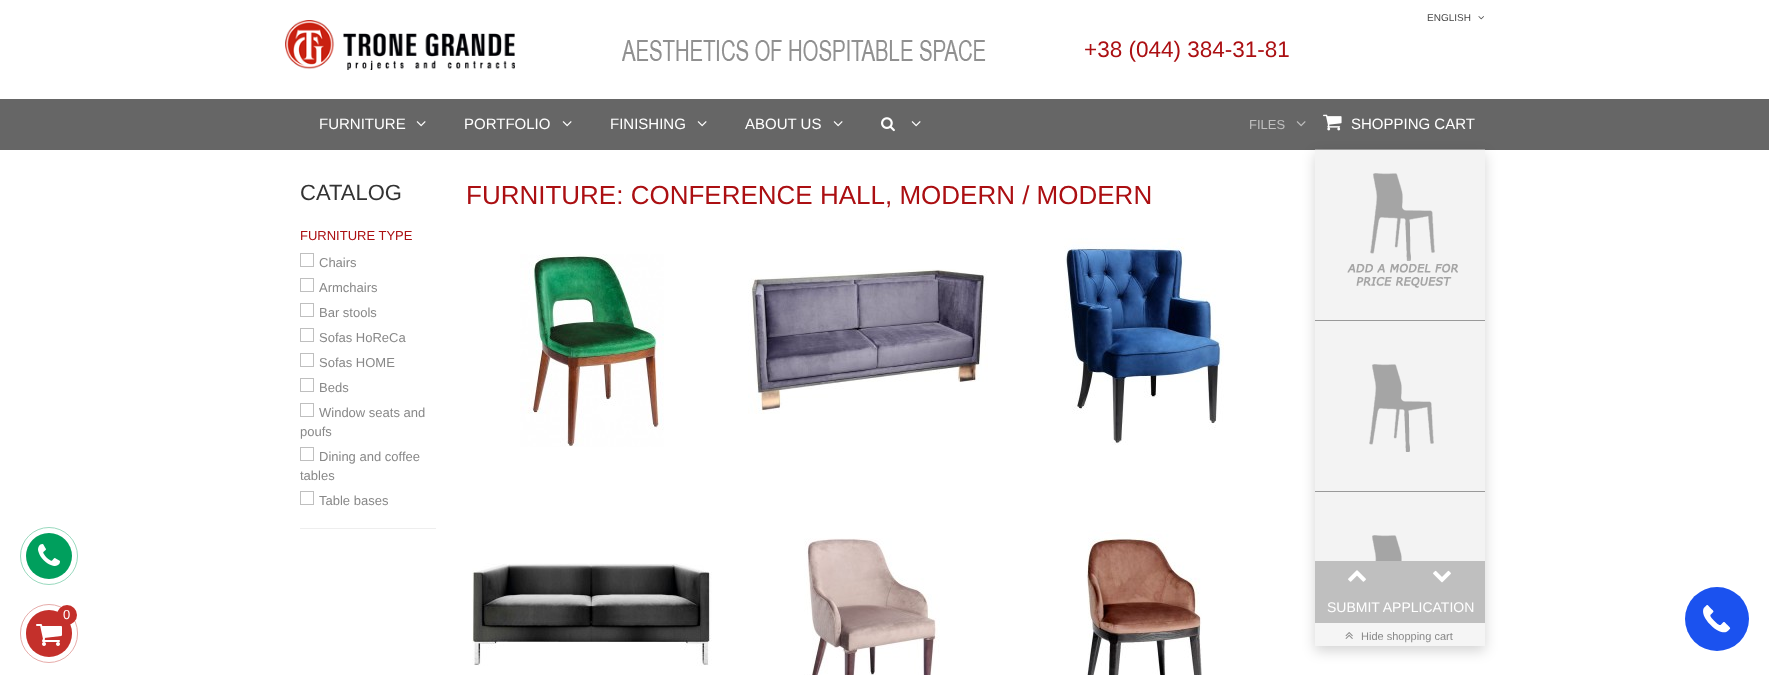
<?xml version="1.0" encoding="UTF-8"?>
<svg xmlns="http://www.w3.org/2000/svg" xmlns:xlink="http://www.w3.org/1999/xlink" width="1769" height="675">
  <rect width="100%" height="100%" fill="#ffffff" />
  <image x="1478" y="16" width="6" height="4" xlink:href="image1.png" />
  <image x="285" y="20" width="230" height="50" xlink:href="image2.png" />
  <image x="622" y="40" width="364" height="21" xlink:href="image3.png" />
  <rect y="99" width="1769" height="51" fill="#666666" />
  <image x="416" y="121" width="10" height="6" xlink:href="image4.png" />
  <image x="562" y="121" width="10" height="6" xlink:href="image4.png" />
  <image x="697" y="121" width="10" height="6" xlink:href="image4.png" />
  <image x="833" y="121" width="10" height="6" xlink:href="image4.png" />
  <image x="881" y="117" width="14" height="15" xlink:href="image5.png" />
  <image x="911" y="121" width="10" height="6" xlink:href="image4.png" />
  <image x="1296" y="121" width="10" height="6" xlink:href="image6.png" />
  <image x="1323" y="114" width="19" height="17" xlink:href="image7.png" />
  <rect x="1315" y="154" width="170" height="497" fill="#000000" fill-opacity="0.17" filter="blur(6.5px)" />
  <rect x="1315" y="623" width="170" height="23" fill="#f5f5f5" />
  <rect x="1315" y="150" width="170" height="170" fill="#f3f3f3" />
  <image x="1347" y="173" width="111" height="115" xlink:href="image8.png" />
  <rect x="1315" y="149" width="170" height="1" fill="#999999" />
  <rect x="1315" y="321" width="170" height="170" fill="#f3f3f3" />
  <image x="1369" y="364" width="65" height="88" xlink:href="image9.png" />
  <rect x="1315" y="320" width="170" height="1" fill="#999999" />
  <rect x="1315" y="492" width="170" height="69" fill="#f3f3f3" />
  <image x="1372" y="535" width="30" height="26" xlink:href="image10.png" />
  <rect x="1315" y="491" width="170" height="1" fill="#999999" />
  <rect x="1315" y="561" width="170" height="30" fill="#bfbfbf" />
  <image x="1348" y="570" width="18" height="12" xlink:href="image11.png" />
  <image x="1433" y="570" width="18" height="13" xlink:href="image12.png" />
  <rect x="1315" y="591" width="170" height="32" fill="#bfbfbf" />
  <image x="1345" y="632" width="8" height="7" xlink:href="image13.png" />
  <rect x="300" y="528" width="136" height="1" fill="#eeeeee" />
  <rect x="300.5" y="253.5" width="13" height="13" fill="none" stroke="#bfbfbf" />
  <rect x="300.5" y="278.5" width="13" height="13" fill="none" stroke="#bfbfbf" />
  <rect x="300.5" y="303.5" width="13" height="13" fill="none" stroke="#bfbfbf" />
  <rect x="300.5" y="328.5" width="13" height="13" fill="none" stroke="#bfbfbf" />
  <rect x="300.5" y="353.5" width="13" height="13" fill="none" stroke="#bfbfbf" />
  <rect x="300.5" y="378.5" width="13" height="13" fill="none" stroke="#bfbfbf" />
  <rect x="300.5" y="403.5" width="13" height="13" fill="none" stroke="#bfbfbf" />
  <rect x="300.5" y="447.5" width="13" height="13" fill="none" stroke="#bfbfbf" />
  <rect x="300.5" y="491.5" width="13" height="13" fill="none" stroke="#bfbfbf" />
  <image x="520" y="254" width="144" height="193" xlink:href="image14.png" />
  <image x="748" y="269" width="240" height="145" xlink:href="image15.png" />
  <image x="1064" y="238" width="160" height="207" xlink:href="image16.png" />
  <image x="472" y="563" width="240" height="103" xlink:href="image17.png" />
  <image x="804" y="538" width="136" height="137" xlink:href="image18.png" />
  <image x="1086" y="530" width="116" height="145" xlink:href="image19.png" />
  <circle cx="49" cy="556" r="28.5" fill="none" stroke="#99d9be" />
  <circle cx="49" cy="556" r="23" fill="#009f5d" />
  <image x="38" y="544" width="22" height="22" xlink:href="image20.png" />
  <rect x="20.5" y="604.5" width="57" height="58" rx="28.5" fill="none" stroke="#e7acaa" />
  <rect x="26" y="610" width="46" height="47" rx="23" fill="#c4302b" />
  <image x="36" y="624" width="26" height="22" xlink:href="image21.png" />
  <circle cx="67" cy="615" r="10" fill="#c4302b" />
  <image x="1685" y="587" width="64" height="64" xlink:href="image22.png" />
  <text x="1427" y="21" style="font-family: Liberation Sans; font-size: 10px; fill: #474747">ENGLISH</text>
  <text x="1084" y="57" style="font-family: Liberation Sans; font-size: 22.5px; fill: #ab0f12">+38 (044) 384-31-81</text>
  <text x="319" y="129" style="font-family: Liberation Sans; font-size: 15px; fill: #ffffff">FURNITURE</text>
  <text x="464" y="129" style="font-family: Liberation Sans; font-size: 15px; fill: #ffffff">PORTFOLIO</text>
  <text x="610" y="129" style="font-family: Liberation Sans; font-size: 15px; fill: #ffffff">FINISHING</text>
  <text x="745" y="129" style="font-family: Liberation Sans; font-size: 15px; fill: #ffffff">ABOUT US</text>
  <text x="1249" y="129" style="font-family: Liberation Sans; font-size: 13px; fill: #bfbfbf">FILES</text>
  <text x="1351" y="129" style="font-family: Liberation Sans; font-size: 15px; fill: #ffffff">SHOPPING CART</text>
  <text x="1327" y="612" style="font-family: Liberation Sans; font-size: 14px; fill: #ffffff">SUBMIT APPLICATION</text>
  <text x="1361" y="640" style="font-family: Liberation Sans; font-size: 11px; fill: #888888">Hide shopping cart</text>
  <text x="300" y="200" style="font-family: Liberation Sans; font-size: 22px; fill: #333333">CATALOG</text>
  <text x="300" y="240" style="font-family: Liberation Sans; font-size: 13px; fill: #ab0f12">FURNITURE TYPE</text>
  <text x="319" y="267" style="font-family: Liberation Sans; font-size: 13px; fill: #888888">Chairs</text>
  <text x="319" y="292" style="font-family: Liberation Sans; font-size: 13px; fill: #888888">Armchairs</text>
  <text x="319" y="317" style="font-family: Liberation Sans; font-size: 13px; fill: #888888">Bar stools</text>
  <text x="319" y="342" style="font-family: Liberation Sans; font-size: 13px; fill: #888888">Sofas HoReCa</text>
  <text x="319" y="367" style="font-family: Liberation Sans; font-size: 13px; fill: #888888">Sofas HOME</text>
  <text x="319" y="392" style="font-family: Liberation Sans; font-size: 13px; fill: #888888">Beds</text>
  <text x="319" y="417" style="font-family: Liberation Sans; font-size: 13px; fill: #888888">Window seats and</text>
  <text x="300" y="436" style="font-family: Liberation Sans; font-size: 13px; fill: #888888">poufs</text>
  <text x="319" y="461" style="font-family: Liberation Sans; font-size: 13px; fill: #888888">Dining and coffee</text>
  <text x="300" y="480" style="font-family: Liberation Sans; font-size: 13px; fill: #888888">tables</text>
  <text x="319" y="505" style="font-family: Liberation Sans; font-size: 13px; fill: #888888">Table bases</text>
  <text x="466" y="204" style="font-family: Liberation Sans; font-size: 26px; fill: #ab0f12">FURNITURE: CONFERENCE HALL, MODERN / MODERN</text>
  <text x="63" y="619" style="font-family: Liberation Sans; font-size: 13px; fill: #ffffff">0</text>
</svg>
